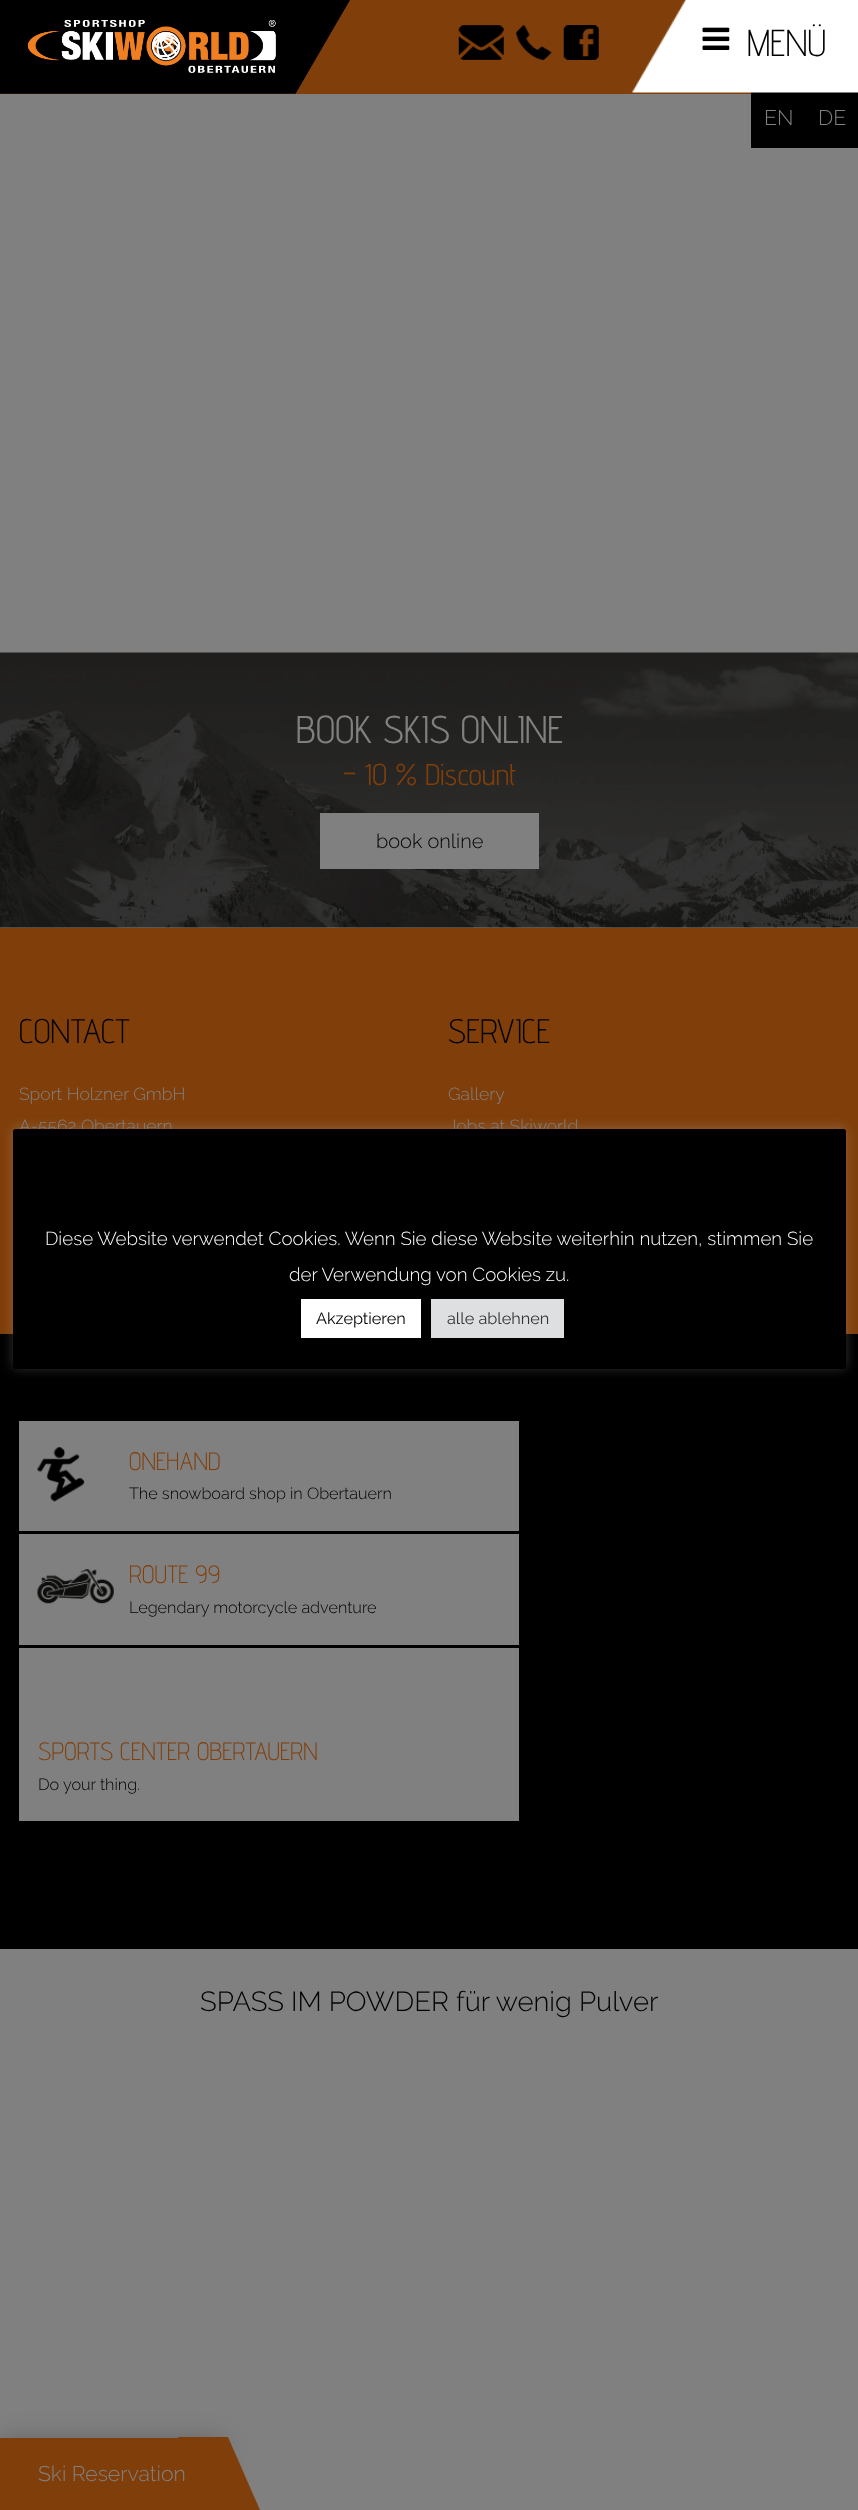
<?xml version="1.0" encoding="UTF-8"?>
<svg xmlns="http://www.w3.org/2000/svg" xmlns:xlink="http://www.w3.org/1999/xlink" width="858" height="2510">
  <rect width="100%" height="100%" fill="#808080" />
  <rect width="751" height="94" fill="#803f0a" />
  <image x="0" y="0" width="350" height="94" xlink:href="image1.png" />
  <rect x="751" y="92" width="107" height="56" fill="#000000" />
  <image x="631" y="0" width="227" height="93" xlink:href="image2.png" />
  <image x="702" y="27" width="28" height="23" xlink:href="image3.png" />
  <image x="458" y="25" width="46" height="35" xlink:href="image4.png" />
  <image x="516" y="25" width="36" height="35" xlink:href="image5.png" />
  <image x="563" y="25" width="36" height="35" xlink:href="image6.png" />
  <image x="0" y="652" width="858" height="276" xlink:href="image7.png" />
  <rect x="320" y="813" width="219" height="56" fill="#808080" />
  <rect y="928" width="858" height="406" fill="#803f0a" />
  <rect y="1334" width="858" height="615" fill="#000000" />
  <rect x="19" y="1421" width="500" height="110" fill="#808080" />
  <image x="37" y="1447" width="48" height="55" xlink:href="image8.png" />
  <rect x="19" y="1534" width="500" height="111" fill="#808080" />
  <image x="37" y="1569" width="77" height="35" xlink:href="image9.png" />
  <rect x="19" y="1648" width="500" height="173" fill="#808080" />
  <rect x="13" y="1128" width="833" height="240" rx="2.5" fill="#acabab" fill-opacity="0.3" filter="blur(6px)" />
  <rect y="2438" width="223" height="72" fill="#000000" fill-opacity="0.2" filter="blur(12.5px)" />
  <rect y="2438" width="210" height="72" fill="#803f0a" />
  <text x="747" y="56" style="font-family: Advent Pro; font-size: 37.5px; font-weight: 300; fill: #000000">MENÜ</text>
  <text x="764" y="125" style="font-family: Raleway; font-size: 21.25px; font-weight: 300; fill: #808080">EN</text>
  <text x="818" y="125" style="font-family: Raleway; font-size: 21.25px; font-weight: 300; fill: #808080">DE</text>
  <text x="296" y="743" style="font-family: Advent Pro; font-size: 38.75px; fill: #808080">BOOK SKIS ONLINE</text>
  <text x="343" y="785" style="font-family: Advent Pro; font-size: 30px; fill: #803f0a">– 10 % Discount</text>
  <text x="376" y="848" style="font-family: Raleway; font-size: 20px; font-weight: 300; fill: #000000">book online</text>
  <text x="19" y="1043" style="font-family: Advent Pro; font-size: 34px; font-weight: 300; fill: #000000">CONTACT</text>
  <text x="19" y="1100" style="font-family: Raleway; font-size: 17.5px; font-weight: 300; fill: #808080">Sport Holzner GmbH</text>
  <text x="19" y="1132" style="font-family: Raleway; font-size: 17.5px; font-weight: 300; fill: #808080">A-5562 Obertauern</text>
  <text x="448" y="1043" style="font-family: Advent Pro; font-size: 34px; font-weight: 300; fill: #000000">SERVICE</text>
  <text x="448" y="1100" style="font-family: Raleway; font-size: 17.5px; font-weight: 300; fill: #808080">Gallery</text>
  <text x="448" y="1132" style="font-family: Raleway; font-size: 17.5px; font-weight: 300; fill: #808080">Jobs at Skiworld</text>
  <text x="129" y="1470" style="font-family: Advent Pro; font-size: 25px; font-weight: 300; fill: #803f0a">ONEHAND</text>
  <text x="129" y="1499" style="font-family: Raleway; font-size: 16.25px; font-weight: 300; fill: #000000">The snowboard shop in Obertauern</text>
  <text x="129" y="1583" style="font-family: Advent Pro; font-size: 25px; font-weight: 300; fill: #803f0a">ROUTE 99</text>
  <text x="129" y="1613" style="font-family: Raleway; font-size: 16.25px; font-weight: 300; fill: #000000">Legendary motorcycle adventure</text>
  <text x="38" y="1760" style="font-family: Advent Pro; font-size: 25px; font-weight: 300; fill: #803f0a">SPORTS CENTER OBERTAUERN</text>
  <text x="38" y="1790" style="font-family: Raleway; font-size: 16.25px; font-weight: 300; fill: #000000">Do your thing.</text>
  <rect x="13" y="1129" width="833" height="240" rx="2.5" fill="#000000" />
  <text x="45" y="1245" style="font-family: Raleway; font-size: 18.75px; font-weight: 300; fill: #ffffff">Diese Website verwendet Cookies. Wenn Sie diese Website weiterhin nutzen, stimmen Sie</text>
  <text x="289" y="1281" style="font-family: Raleway; font-size: 18.75px; font-weight: 300; fill: #ffffff">der Verwendung von Cookies zu.</text>
  <rect x="301" y="1299" width="120" height="39" fill="#ffffff" />
  <text x="316" y="1324" style="font-family: Raleway; font-size: 16.25px; fill: #000000">Akzeptieren</text>
  <rect x="431" y="1299" width="133" height="39" fill="#dedfe0" />
  <text x="447" y="1324" style="font-family: Raleway; font-size: 16.25px; fill: #333333">alle ablehnen</text>
  <text x="200" y="2011" style="font-family: Raleway; font-size: 27.5px; font-weight: 300; fill: #000000">SPASS IM POWDER für wenig Pulver</text>
  <text x="38" y="2481" style="font-family: Raleway; font-size: 21.25px; font-weight: 300; fill: #808080">Ski Reservation</text>
  <path d="M 178 2437 h 50 l 32 73 h -50 z" fill="#803f0a" />
</svg>
